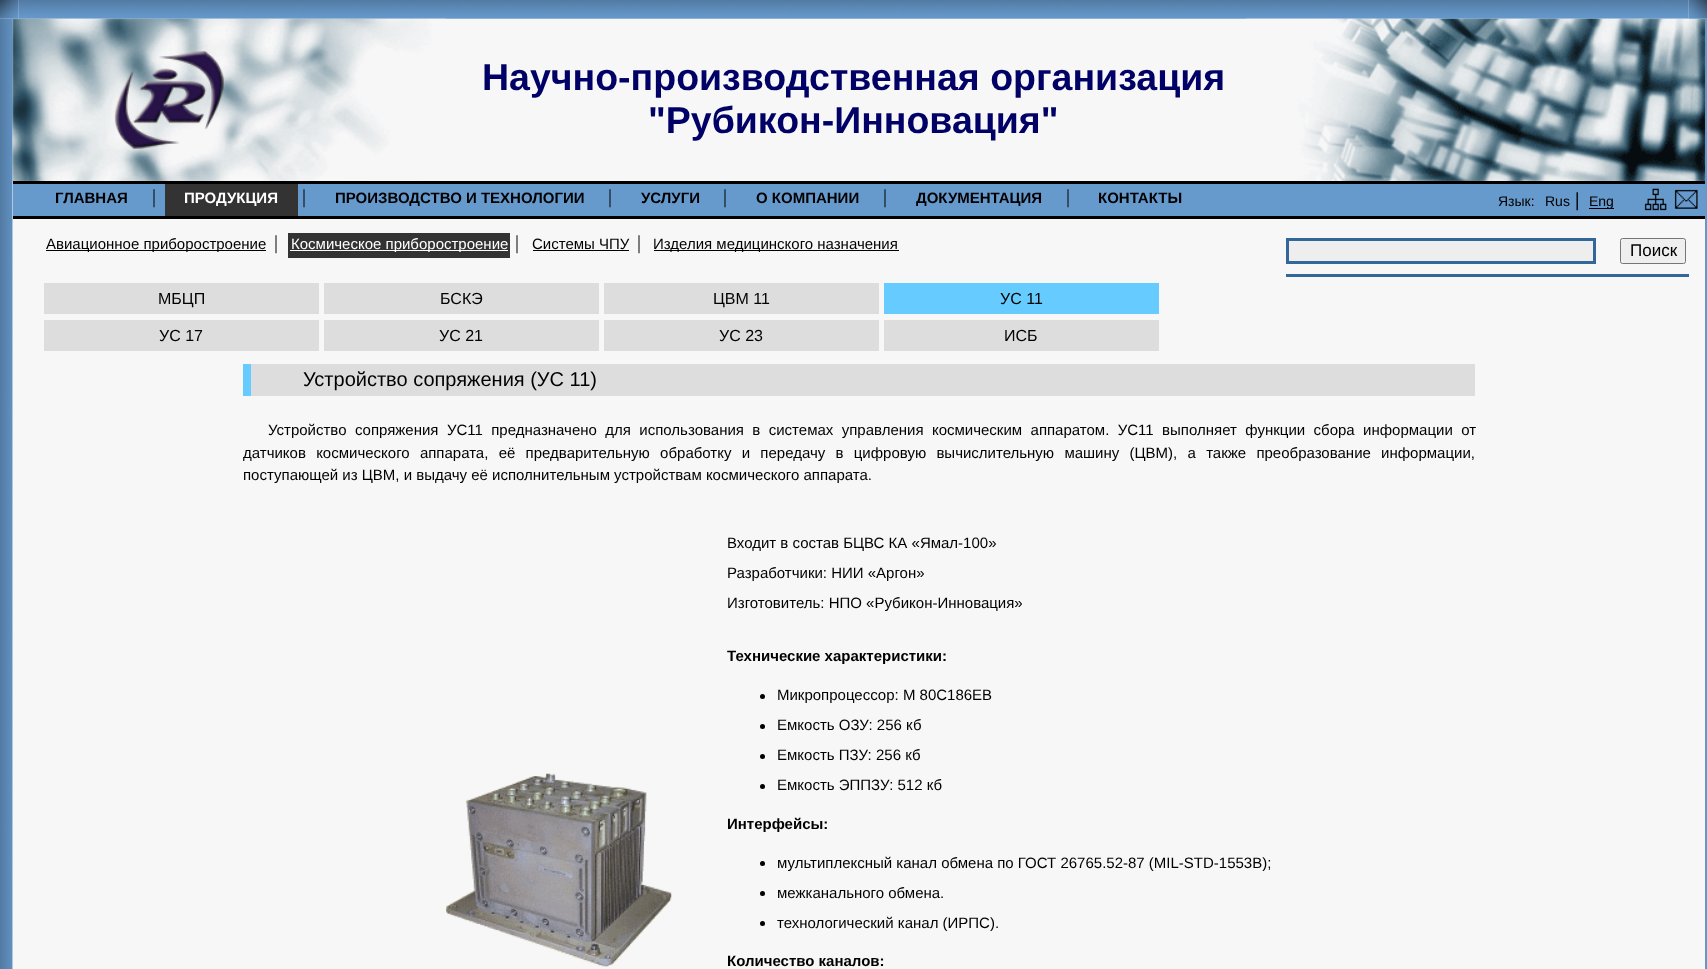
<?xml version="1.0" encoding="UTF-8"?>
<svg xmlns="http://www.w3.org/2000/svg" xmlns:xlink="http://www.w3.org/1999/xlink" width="1707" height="969">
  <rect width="100%" height="100%" fill="#ffffff" />
  <image x="18" y="0" width="1671" height="19" xlink:href="image2.png" />
  <image x="0" y="18" width="13" height="951" xlink:href="image4.png" />
  <rect x="13" y="19" width="1692" height="950" fill="#f7f7f7" />
  <image x="12" y="18" width="435" height="164" xlink:href="image5.png" />
  <image x="0" y="0" width="19" height="19" xlink:href="image1.png" />
  <image x="1246" y="18" width="459" height="163" xlink:href="image7.png" />
  <image x="1705" y="18" width="2" height="951" xlink:href="image11.png" />
  <image x="1688" y="0" width="19" height="19" xlink:href="image3.png" />
  <image x="114" y="51" width="110" height="98" xlink:href="image6.png" />
  <rect x="13" y="184" width="1692" height="32" fill="#6699cc" />
  <rect x="13" y="181" width="1692" height="3" fill="#000000" />
  <rect x="13" y="216" width="1692" height="3" fill="#000000" />
  <rect x="165" y="184" width="133" height="32" fill="#333333" />
  <rect x="1589" y="208" width="25" height="1" fill="#000000" />
  <image x="1644" y="188" width="23" height="23" xlink:href="image8.png" />
  <image x="1674" y="189" width="24" height="20" xlink:href="image9.png" />
  <rect x="46" y="250" width="220" height="1" fill="#000000" />
  <rect x="288" y="233" width="222" height="25" fill="#333333" />
  <rect x="290" y="250" width="218" height="1" fill="#ffffff" />
  <rect x="533" y="250" width="96" height="1" fill="#000000" />
  <rect x="654" y="250" width="245" height="1" fill="#000000" />
  <rect x="44" y="283" width="275" height="31" fill="#dddddd" />
  <rect x="324" y="283" width="275" height="31" fill="#dddddd" />
  <rect x="604" y="283" width="275" height="31" fill="#dddddd" />
  <rect x="884" y="283" width="275" height="31" fill="#66ccff" />
  <rect x="44" y="320" width="275" height="31" fill="#dddddd" />
  <rect x="324" y="320" width="275" height="31" fill="#dddddd" />
  <rect x="604" y="320" width="275" height="31" fill="#dddddd" />
  <rect x="884" y="320" width="275" height="31" fill="#dddddd" />
  <rect x="1287.5" y="239.5" width="307" height="23" fill="#eeeeee" stroke="#336699" stroke-width="3" />
  <rect x="1620.5" y="238.5" width="65" height="25" rx="2" fill="#efefef" stroke="#767676" />
  <rect x="1286" y="274" width="403" height="3" fill="#336699" />
  <rect x="251" y="364" width="1224" height="32" fill="#dddddd" />
  <rect x="243" y="364" width="8" height="32" fill="#66ccff" />
  <image x="446" y="773" width="226" height="194" xlink:href="image10.png" />
  <circle cx="762.5" cy="696.5" r="2.5" fill="#000000" />
  <circle cx="762.5" cy="726.5" r="2.5" fill="#000000" />
  <circle cx="762.5" cy="756.5" r="2.5" fill="#000000" />
  <circle cx="762.5" cy="786.5" r="2.5" fill="#000000" />
  <circle cx="762.5" cy="863.5" r="2.5" fill="#000000" />
  <circle cx="762.5" cy="893.5" r="2.5" fill="#000000" />
  <circle cx="762.5" cy="923.5" r="2.5" fill="#000000" />
  <text x="482" y="90" style="font-family: Liberation Sans; font-size: 37.5px; font-weight: bold; fill: #000066">Научно-производственная организация</text>
  <text x="648" y="133" style="font-family: Liberation Sans; font-size: 37.5px; font-weight: bold; fill: #000066">"Рубикон-Инновация"</text>
  <text x="55" y="203" style="font-family: Liberation Sans; font-size: 15px; font-weight: bold; fill: #000000">ГЛАВНАЯ</text>
  <text x="152" y="203" style="font-family: Liberation Serif; font-size: 20px; fill: #000000">|</text>
  <text x="184" y="203" style="font-family: Liberation Sans; font-size: 15px; font-weight: bold; fill: #ffffff">ПРОДУКЦИЯ</text>
  <text x="302" y="203" style="font-family: Liberation Serif; font-size: 20px; fill: #000000">|</text>
  <text x="335" y="203" style="font-family: Liberation Sans; font-size: 15px; font-weight: bold; fill: #000000">ПРОИЗВОДСТВО И ТЕХНОЛОГИИ</text>
  <text x="608" y="203" style="font-family: Liberation Serif; font-size: 20px; fill: #000000">|</text>
  <text x="641" y="203" style="font-family: Liberation Sans; font-size: 15px; font-weight: bold; fill: #000000">УСЛУГИ</text>
  <text x="723" y="203" style="font-family: Liberation Serif; font-size: 20px; fill: #000000">|</text>
  <text x="756" y="203" style="font-family: Liberation Sans; font-size: 15px; font-weight: bold; fill: #000000">О КОМПАНИИ</text>
  <text x="883" y="203" style="font-family: Liberation Serif; font-size: 20px; fill: #000000">|</text>
  <text x="916" y="203" style="font-family: Liberation Sans; font-size: 15px; font-weight: bold; fill: #000000">ДОКУМЕНТАЦИЯ</text>
  <text x="1066" y="203" style="font-family: Liberation Serif; font-size: 20px; fill: #000000">|</text>
  <text x="1098" y="203" style="font-family: Liberation Sans; font-size: 15px; font-weight: bold; fill: #000000">КОНТАКТЫ</text>
  <text x="1498" y="206" style="font-family: Liberation Sans; font-size: 14px; fill: #000000">Язык:</text>
  <text x="1545" y="206" style="font-family: Liberation Sans; font-size: 14px; fill: #000000">Rus</text>
  <text x="1575" y="206" style="font-family: Liberation Serif; font-size: 20px; font-weight: bold; fill: #000000">|</text>
  <text x="1589" y="206" style="font-family: Liberation Sans; font-size: 14px; fill: #000000">Eng</text>
  <text x="46" y="249" style="font-family: Liberation Sans; font-size: 15px; fill: #000000">Авиационное приборостроение</text>
  <text x="274" y="249" style="font-family: Liberation Serif; font-size: 20px; fill: #000000">|</text>
  <text x="291" y="249" style="font-family: Liberation Sans; font-size: 15px; fill: #ffffff">Космическое приборостроение</text>
  <text x="515" y="249" style="font-family: Liberation Serif; font-size: 20px; fill: #000000">|</text>
  <text x="532" y="249" style="font-family: Liberation Sans; font-size: 15px; fill: #000000">Системы ЧПУ</text>
  <text x="637" y="249" style="font-family: Liberation Serif; font-size: 20px; fill: #000000">|</text>
  <text x="653" y="249" style="font-family: Liberation Sans; font-size: 15px; fill: #000000">Изделия медицинского назначения</text>
  <text x="158" y="304" style="font-family: Liberation Sans; font-size: 16px; fill: #000000">МБЦП</text>
  <text x="440" y="304" style="font-family: Liberation Sans; font-size: 16px; fill: #000000">БСКЭ</text>
  <text x="713" y="304" style="font-family: Liberation Sans; font-size: 16px; fill: #000000">ЦВМ 11</text>
  <text x="1000" y="304" style="font-family: Liberation Sans; font-size: 16px; fill: #000000">УС 11</text>
  <text x="159" y="341" style="font-family: Liberation Sans; font-size: 16px; fill: #000000">УС 17</text>
  <text x="439" y="341" style="font-family: Liberation Sans; font-size: 16px; fill: #000000">УС 21</text>
  <text x="719" y="341" style="font-family: Liberation Sans; font-size: 16px; fill: #000000">УС 23</text>
  <text x="1004" y="341" style="font-family: Liberation Sans; font-size: 16px; fill: #000000">ИСБ</text>
  <text x="1630" y="256" style="font-family: Liberation Sans; font-size: 17px; fill: #000000">Поиск</text>
  <text x="303" y="386" style="font-family: Liberation Sans; font-size: 20px; fill: #000000">Устройство сопряжения (УС 11)</text>
  <text x="268" y="435" word-spacing="4.25" style="font-family: Liberation Sans; font-size: 15px; fill: #000000">Устройство сопряжения УС11 предназначено для использования в системах управления космическим аппаратом. УС11 выполняет функции сбора информации от</text>
  <text x="243" y="458" word-spacing="6.1" style="font-family: Liberation Sans; font-size: 15px; fill: #000000">датчиков космического аппарата, её предварительную обработку и передачу в цифровую вычислительную машину (ЦВМ), а также преобразование информации,</text>
  <text x="243" y="480" style="font-family: Liberation Sans; font-size: 15px; fill: #000000">поступающей из ЦВМ, и выдачу её исполнительным устройствам космического аппарата.</text>
  <text x="727" y="548" style="font-family: Liberation Sans; font-size: 15px; fill: #000000">Входит в состав БЦВС КА «Ямал-100»</text>
  <text x="727" y="578" style="font-family: Liberation Sans; font-size: 15px; fill: #000000">Разработчики: НИИ «Аргон»</text>
  <text x="727" y="608" style="font-family: Liberation Sans; font-size: 15px; fill: #000000">Изготовитель: НПО «Рубикон-Инновация»</text>
  <text x="727" y="661" style="font-family: Liberation Sans; font-size: 15px; font-weight: bold; fill: #000000">Технические характеристики:</text>
  <text x="777" y="700" style="font-family: Liberation Sans; font-size: 15px; fill: #000000">Микропроцессор: М 80С186ЕВ</text>
  <text x="777" y="730" style="font-family: Liberation Sans; font-size: 15px; fill: #000000">Емкость ОЗУ: 256 кб</text>
  <text x="777" y="760" style="font-family: Liberation Sans; font-size: 15px; fill: #000000">Емкость ПЗУ: 256 кб</text>
  <text x="777" y="790" style="font-family: Liberation Sans; font-size: 15px; fill: #000000">Емкость ЭППЗУ: 512 кб</text>
  <text x="727" y="829" style="font-family: Liberation Sans; font-size: 15px; font-weight: bold; fill: #000000">Интерфейсы:</text>
  <text x="777" y="868" style="font-family: Liberation Sans; font-size: 15px; fill: #000000">мультиплексный канал обмена по ГОСТ 26765.52-87 (MIL-STD-1553B);</text>
  <text x="777" y="898" style="font-family: Liberation Sans; font-size: 15px; fill: #000000">межканального обмена.</text>
  <text x="777" y="928" style="font-family: Liberation Sans; font-size: 15px; fill: #000000">технологический канал (ИРПС).</text>
  <text x="727" y="966" style="font-family: Liberation Sans; font-size: 15px; font-weight: bold; fill: #000000">Количество каналов:</text>
</svg>
